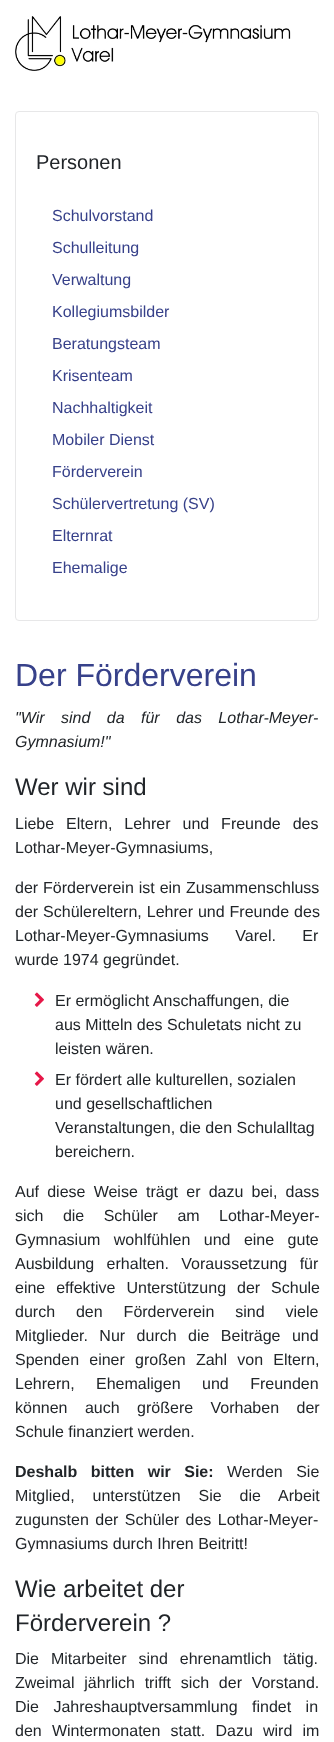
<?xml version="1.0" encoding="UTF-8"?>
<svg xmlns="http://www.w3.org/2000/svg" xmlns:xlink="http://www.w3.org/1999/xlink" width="334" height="1742">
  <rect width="100%" height="100%" fill="#ffffff" />
  <image x="15" y="16" width="276" height="55" xlink:href="image1.png" />
  <rect x="15.5" y="111.5" width="303" height="509" rx="3.5" fill="none" stroke="#e7e7e8" />
  <image x="34" y="992" width="10" height="15" xlink:href="image2.png" />
  <image x="34" y="1071" width="10" height="15" xlink:href="image2.png" />
  <text x="36" y="169" style="font-family: Liberation Sans; font-size: 20px; fill: #212529">Personen</text>
  <text x="52" y="221" style="font-family: Liberation Sans; font-size: 16px; fill: #37418a">Schulvorstand</text>
  <text x="52" y="253" style="font-family: Liberation Sans; font-size: 16px; fill: #37418a">Schulleitung</text>
  <text x="52" y="285" style="font-family: Liberation Sans; font-size: 16px; fill: #37418a">Verwaltung</text>
  <text x="52" y="317" style="font-family: Liberation Sans; font-size: 16px; fill: #37418a">Kollegiumsbilder</text>
  <text x="52" y="349" style="font-family: Liberation Sans; font-size: 16px; fill: #37418a">Beratungsteam</text>
  <text x="52" y="381" style="font-family: Liberation Sans; font-size: 16px; fill: #37418a">Krisenteam</text>
  <text x="52" y="413" style="font-family: Liberation Sans; font-size: 16px; fill: #37418a">Nachhaltigkeit</text>
  <text x="52" y="445" style="font-family: Liberation Sans; font-size: 16px; fill: #37418a">Mobiler Dienst</text>
  <text x="52" y="477" style="font-family: Liberation Sans; font-size: 16px; fill: #37418a">Förderverein</text>
  <text x="52" y="509" style="font-family: Liberation Sans; font-size: 16px; fill: #37418a">Schülervertretung (SV)</text>
  <text x="52" y="541" style="font-family: Liberation Sans; font-size: 16px; fill: #37418a">Elternrat</text>
  <text x="52" y="573" style="font-family: Liberation Sans; font-size: 16px; fill: #37418a">Ehemalige</text>
  <text x="15" y="686" style="font-family: Liberation Sans; font-size: 32px; fill: #37418a">Der Förderverein</text>
  <text x="15" y="723" word-spacing="12" style="font-family: Liberation Sans; font-size: 16px; font-style: italic; fill: #212529">"Wir sind da für das Lothar-Meyer-</text>
  <text x="15" y="747" style="font-family: Liberation Sans; font-size: 16px; font-style: italic; fill: #212529">Gymnasium!"</text>
  <text x="15" y="795" style="font-family: Liberation Sans; font-size: 24px; fill: #212529">Wer wir sind</text>
  <text x="15" y="829" word-spacing="7.5" style="font-family: Liberation Sans; font-size: 16px; fill: #212529">Liebe Eltern, Lehrer und Freunde des</text>
  <text x="15" y="853" style="font-family: Liberation Sans; font-size: 16px; fill: #212529">Lothar-Meyer-Gymnasiums,</text>
  <text x="15" y="893" word-spacing="0.5" style="font-family: Liberation Sans; font-size: 16px; fill: #212529">der Förderverein ist ein Zusammenschluss</text>
  <text x="15" y="917" word-spacing="0.5" style="font-family: Liberation Sans; font-size: 16px; fill: #212529">der Schülereltern, Lehrer und Freunde des</text>
  <text x="15" y="941" word-spacing="22" style="font-family: Liberation Sans; font-size: 16px; fill: #212529">Lothar-Meyer-Gymnasiums Varel. Er</text>
  <text x="15" y="965" style="font-family: Liberation Sans; font-size: 16px; fill: #212529">wurde 1974 gegründet.</text>
  <text x="55" y="1006" style="font-family: Liberation Sans; font-size: 16px; fill: #212529">Er ermöglicht Anschaffungen, die</text>
  <text x="55" y="1030" style="font-family: Liberation Sans; font-size: 16px; fill: #212529">aus Mitteln des Schuletats nicht zu</text>
  <text x="55" y="1054" style="font-family: Liberation Sans; font-size: 16px; fill: #212529">leisten wären.</text>
  <text x="55" y="1085" style="font-family: Liberation Sans; font-size: 16px; fill: #212529">Er fördert alle kulturellen, sozialen</text>
  <text x="55" y="1109" style="font-family: Liberation Sans; font-size: 16px; fill: #212529">und gesellschaftlichen</text>
  <text x="55" y="1133" style="font-family: Liberation Sans; font-size: 16px; fill: #212529">Veranstaltungen, die den Schulalltag</text>
  <text x="55" y="1157" style="font-family: Liberation Sans; font-size: 16px; fill: #212529">bereichern.</text>
  <text x="15" y="1197" word-spacing="3.75" style="font-family: Liberation Sans; font-size: 16px; fill: #212529">Auf diese Weise trägt er dazu bei, dass</text>
  <text x="15" y="1221" word-spacing="15" style="font-family: Liberation Sans; font-size: 16px; fill: #212529">sich die Schüler am Lothar-Meyer-</text>
  <text x="15" y="1245" word-spacing="9" style="font-family: Liberation Sans; font-size: 16px; fill: #212529">Gymnasium wohlfühlen und eine gute</text>
  <text x="15" y="1269" word-spacing="8" style="font-family: Liberation Sans; font-size: 16px; fill: #212529">Ausbildung erhalten. Voraussetzung für</text>
  <text x="15" y="1293" word-spacing="6.5" style="font-family: Liberation Sans; font-size: 16px; fill: #212529">eine effektive Unterstützung der Schule</text>
  <text x="15" y="1317" word-spacing="16.5" style="font-family: Liberation Sans; font-size: 16px; fill: #212529">durch den Förderverein sind viele</text>
  <text x="15" y="1341" word-spacing="7" style="font-family: Liberation Sans; font-size: 16px; fill: #212529">Mitglieder. Nur durch die Beiträge und</text>
  <text x="15" y="1365" word-spacing="5.75" style="font-family: Liberation Sans; font-size: 16px; fill: #212529">Spenden einer großen Zahl von Eltern,</text>
  <text x="15" y="1389" word-spacing="17" style="font-family: Liberation Sans; font-size: 16px; fill: #212529">Lehrern, Ehemaligen und Freunden</text>
  <text x="15" y="1413" word-spacing="13" style="font-family: Liberation Sans; font-size: 16px; fill: #212529">können auch größere Vorhaben der</text>
  <text x="15" y="1437" style="font-family: Liberation Sans; font-size: 16px; fill: #212529">Schule finanziert werden.</text>
  <text x="15" y="1477" word-spacing="9" style="font-family: Liberation Sans; font-size: 16px; font-weight: bold; fill: #212529">Deshalb bitten wir Sie:</text>
  <text x="227" y="1477" word-spacing="9" style="font-family: Liberation Sans; font-size: 16px; fill: #212529">Werden Sie</text>
  <text x="15" y="1501" word-spacing="13.5" style="font-family: Liberation Sans; font-size: 16px; fill: #212529">Mitglied, unterstützen Sie die Arbeit</text>
  <text x="15" y="1525" word-spacing="2" style="font-family: Liberation Sans; font-size: 16px; fill: #212529">zugunsten der Schüler des Lothar-Meyer-</text>
  <text x="15" y="1549" style="font-family: Liberation Sans; font-size: 16px; fill: #212529">Gymnasiums durch Ihren Beitritt!</text>
  <text x="15" y="1597" style="font-family: Liberation Sans; font-size: 24px; fill: #212529">Wie arbeitet der</text>
  <text x="15" y="1631" style="font-family: Liberation Sans; font-size: 24px; fill: #212529">Förderverein ?</text>
  <text x="15" y="1664" word-spacing="7.5" style="font-family: Liberation Sans; font-size: 16px; fill: #212529">Die Mitarbeiter sind ehrenamtlich tätig.</text>
  <text x="15" y="1688" word-spacing="5.25" style="font-family: Liberation Sans; font-size: 16px; fill: #212529">Zweimal jährlich trifft sich der Vorstand.</text>
  <text x="15" y="1712" word-spacing="10" style="font-family: Liberation Sans; font-size: 16px; fill: #212529">Die Jahreshauptversammlung findet in</text>
  <text x="15" y="1736" word-spacing="5.75" style="font-family: Liberation Sans; font-size: 16px; fill: #212529">den Wintermonaten statt. Dazu wird im</text>
</svg>
